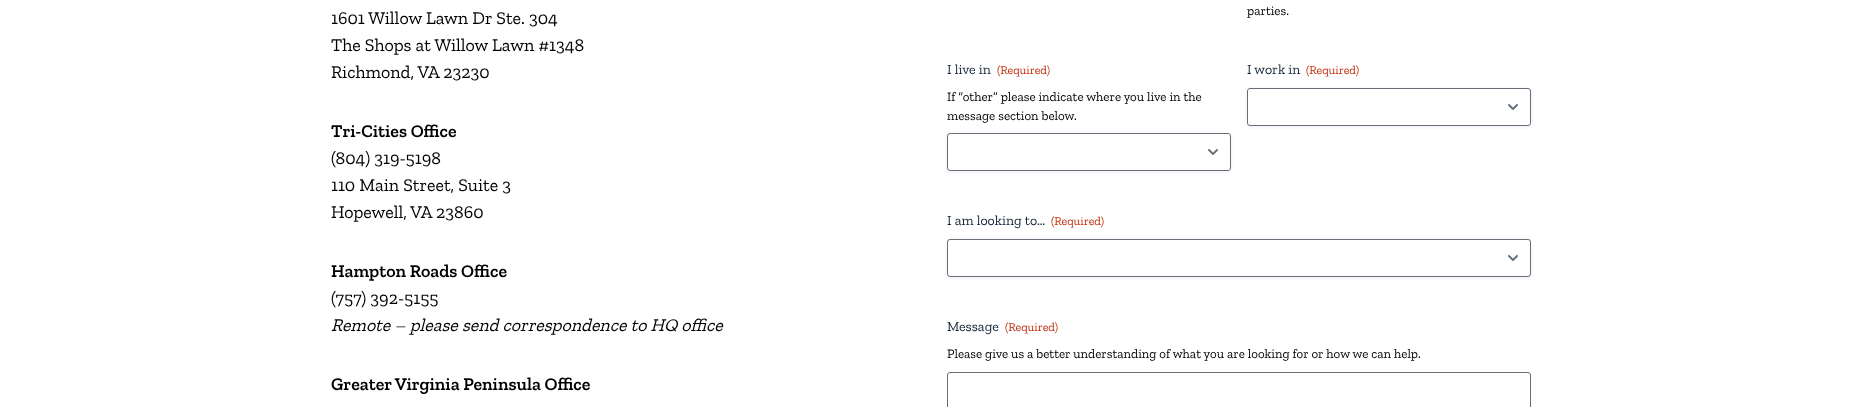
<?xml version="1.0" encoding="UTF-8"?>
<svg xmlns="http://www.w3.org/2000/svg" xmlns:xlink="http://www.w3.org/1999/xlink" width="1862" height="407">
  <rect width="100%" height="100%" fill="#ffffff" />
  <rect x="947" y="134" width="284" height="38" rx="3" fill="#121961" fill-opacity="0.08" filter="blur(2px)" />
  <rect x="947" y="133" width="284" height="38" rx="3" fill="#ffffff" />
  <image x="1208" y="149" width="10" height="6" xlink:href="image1.png" />
  <rect x="947.5" y="133.5" width="283" height="37" rx="2.5" fill="none" stroke="#686e77" />
  <rect x="1247" y="89" width="284" height="38" rx="3" fill="#121961" fill-opacity="0.08" filter="blur(2px)" />
  <rect x="1247" y="88" width="284" height="38" rx="3" fill="#ffffff" />
  <image x="1508" y="104" width="10" height="6" xlink:href="image1.png" />
  <rect x="1247.5" y="88.5" width="283" height="37" rx="2.5" fill="none" stroke="#686e77" />
  <rect x="947" y="240" width="584" height="38" rx="3" fill="#121961" fill-opacity="0.08" filter="blur(2px)" />
  <rect x="947" y="239" width="584" height="38" rx="3" fill="#ffffff" />
  <image x="1508" y="255" width="10" height="6" xlink:href="image1.png" />
  <rect x="947.5" y="239.5" width="583" height="37" rx="2.5" fill="none" stroke="#686e77" />
  <rect x="947.5" y="372.5" width="583" height="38" rx="2.5" fill="none" stroke="#686e77" />
  <text x="331" y="24" style="font-family: Zilla Slab; font-size: 18px; fill: #000000">1601 Willow Lawn Dr Ste. 304</text>
  <text x="331" y="51" style="font-family: Zilla Slab; font-size: 18px; fill: #000000">The Shops at Willow Lawn #1348</text>
  <text x="331" y="78" style="font-family: Zilla Slab; font-size: 18px; fill: #000000">Richmond, VA 23230</text>
  <text x="331" y="137" style="font-family: Zilla Slab; font-size: 18px; font-weight: 600; fill: #000000">Tri-Cities Office</text>
  <text x="331" y="164" style="font-family: Zilla Slab; font-size: 18px; fill: #000000">(804) 319-5198</text>
  <text x="331" y="191" style="font-family: Zilla Slab; font-size: 18px; fill: #000000">110 Main Street, Suite 3</text>
  <text x="331" y="218" style="font-family: Zilla Slab; font-size: 18px; fill: #000000">Hopewell, VA 23860</text>
  <text x="331" y="277" style="font-family: Zilla Slab; font-size: 18px; font-weight: 600; fill: #000000">Hampton Roads Office</text>
  <text x="331" y="304" style="font-family: Zilla Slab; font-size: 18px; fill: #000000">(757) 392-5155</text>
  <text x="331" y="331" style="font-family: Zilla Slab; font-size: 18px; font-style: italic; fill: #000000">Remote – please send correspondence to HQ office</text>
  <text x="331" y="390" style="font-family: Zilla Slab; font-size: 18px; font-weight: 600; fill: #000000">Greater Virginia Peninsula Office</text>
  <text x="1247" y="15" style="font-family: Zilla Slab; font-size: 13px; fill: #000000">parties.</text>
  <text x="947" y="74" style="font-family: Zilla Slab; font-size: 14px; fill: #112337">I live in</text>
  <text x="997" y="74" style="font-family: Zilla Slab; font-size: 12px; fill: #c02b0a">(Required)</text>
  <text x="947" y="101" style="font-family: Zilla Slab; font-size: 13px; fill: #000000">If “other” please indicate where you live in the</text>
  <text x="947" y="120" style="font-family: Zilla Slab; font-size: 13px; fill: #000000">message section below.</text>
  <text x="1247" y="74" style="font-family: Zilla Slab; font-size: 14px; fill: #112337">I work in</text>
  <text x="1306" y="74" style="font-family: Zilla Slab; font-size: 12px; fill: #c02b0a">(Required)</text>
  <text x="947" y="225" style="font-family: Zilla Slab; font-size: 14px; fill: #112337">I am looking to…</text>
  <text x="1051" y="225" style="font-family: Zilla Slab; font-size: 12px; fill: #c02b0a">(Required)</text>
  <text x="947" y="331" style="font-family: Zilla Slab; font-size: 14px; fill: #112337">Message</text>
  <text x="1005" y="331" style="font-family: Zilla Slab; font-size: 12px; fill: #c02b0a">(Required)</text>
  <text x="947" y="358" style="font-family: Zilla Slab; font-size: 13px; fill: #000000">Please give us a better understanding of what you are looking for or how we can help.</text>
</svg>
